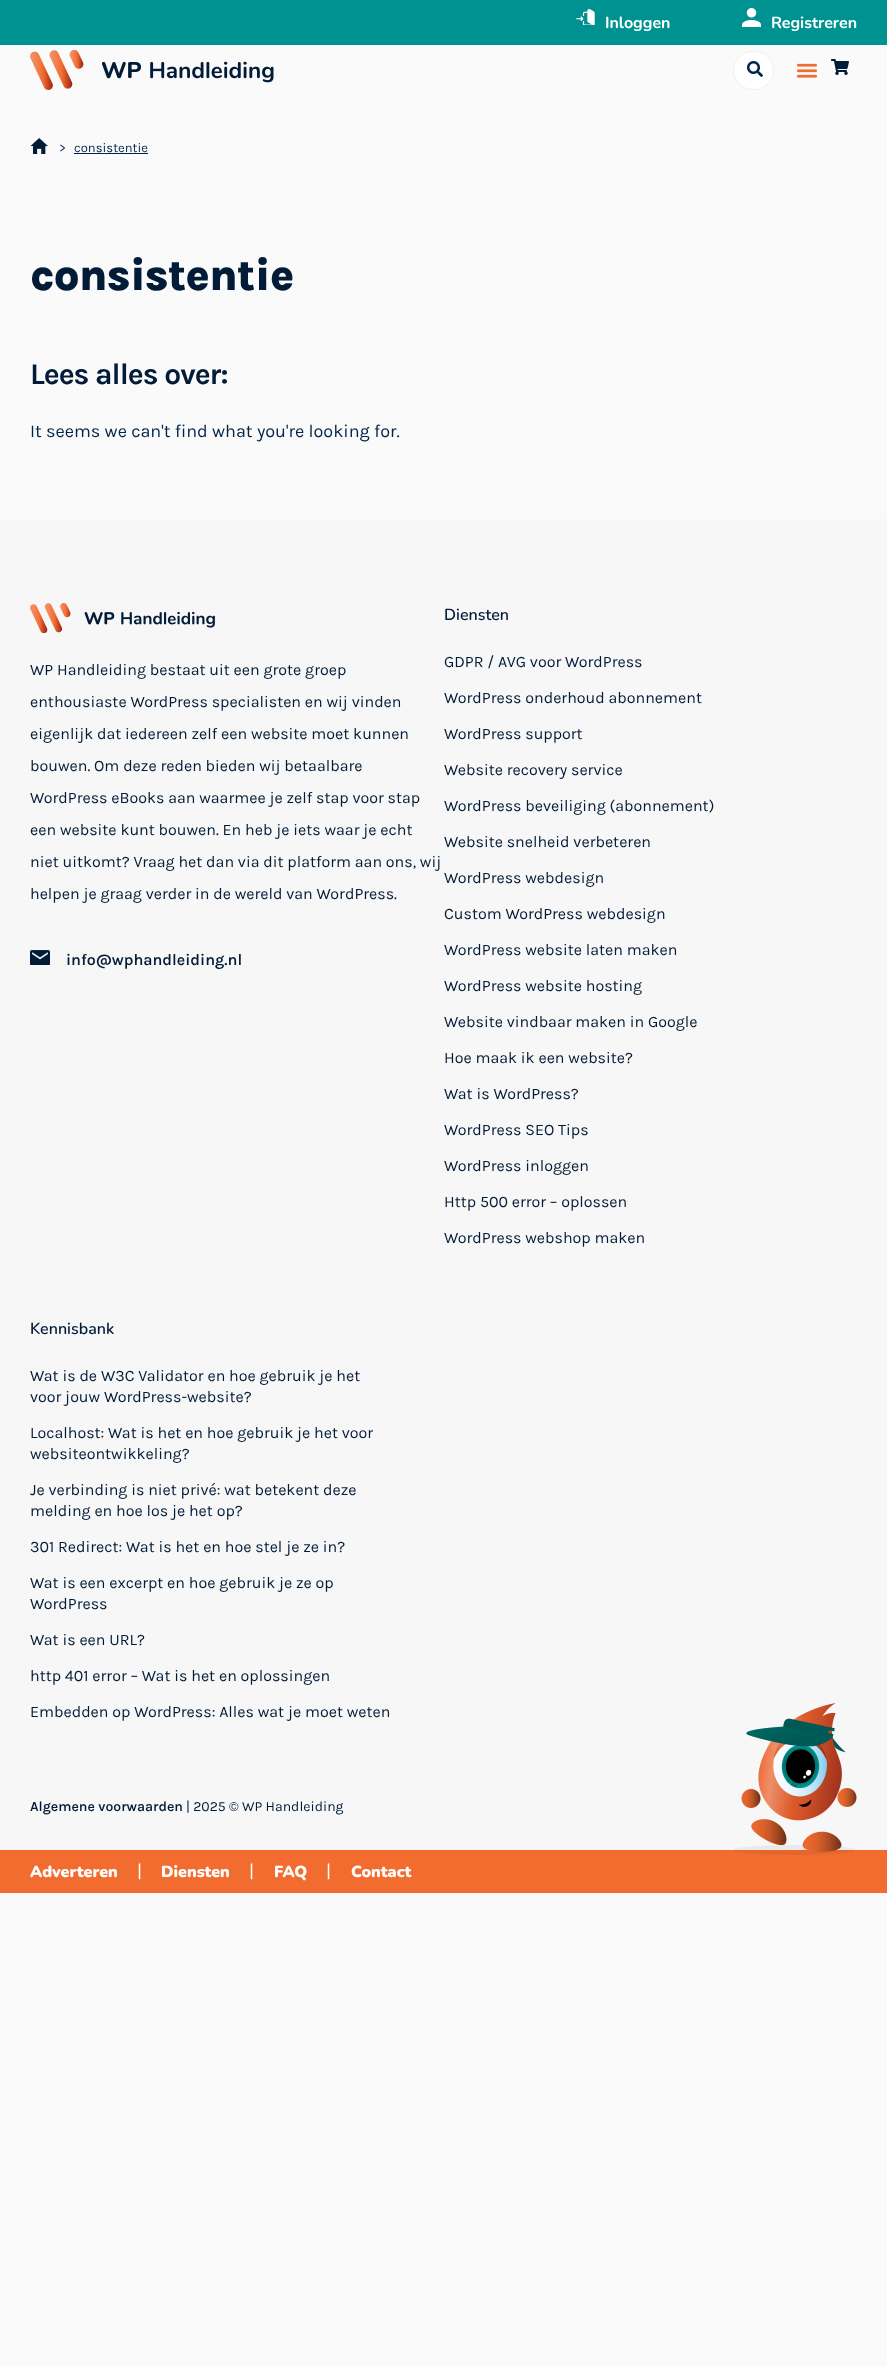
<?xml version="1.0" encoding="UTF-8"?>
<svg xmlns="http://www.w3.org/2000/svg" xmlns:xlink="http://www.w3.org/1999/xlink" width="887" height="2366">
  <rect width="100%" height="100%" fill="#fafafa" />
  <rect width="887" height="45" fill="#009191" />
  <image x="576" y="9" width="19" height="16" xlink:href="image1.png" />
  <image x="742" y="8" width="19" height="19" xlink:href="image2.png" />
  <image x="30" y="50" width="244" height="40" xlink:href="image3.png" />
  <rect x="733.5" y="51.5" width="40" height="38" rx="19" fill="#ffffff" stroke="#f0f0f0" />
  <image x="747" y="61" width="16" height="16" xlink:href="image4.png" />
  <image x="796" y="63" width="22" height="15" xlink:href="image5.png" />
  <image x="831" y="59" width="18" height="16" xlink:href="image6.png" />
  <image x="30" y="138" width="18" height="16" xlink:href="image7.png" />
  <rect x="74" y="153" width="74" height="1" fill="#00254a" />
  <rect y="519" width="887" height="1331" fill="#f7f7f7" />
  <image x="30" y="603" width="185" height="30" xlink:href="image8.png" />
  <image x="30" y="950" width="20" height="15" xlink:href="image9.png" />
  <rect y="1850" width="887" height="43" fill="#f26c30" />
  <image x="733" y="1703" width="124" height="152" xlink:href="image10.png" />
  <text x="605" y="28" style="font-family: Nunito; font-size: 16px; font-weight: bold; fill: #ffffff">Inloggen</text>
  <text x="771" y="28" style="font-family: Nunito; font-size: 16px; font-weight: bold; fill: #ffffff">Registreren</text>
  <text x="59" y="152" style="font-family: Karla; font-size: 13px; fill: #00254a">&gt;</text>
  <text x="74" y="152" style="font-family: Karla; font-size: 13px; fill: #00254a">consistentie</text>
  <text x="30" y="290" style="font-family: Karla; font-size: 45px; font-weight: 800; letter-spacing: -1px; fill: #021b37">consistentie</text>
  <text x="30" y="384" style="font-family: Karla; font-size: 30px; font-weight: bold; letter-spacing: -1px; fill: #021b37">Lees alles over:</text>
  <text x="30" y="437" style="font-family: Karla; font-size: 18px; fill: #00254a">It seems we can't find what you're looking for.</text>
  <text x="30" y="675" style="font-family: Karla; font-size: 16px; fill: #021b37">WP Handleiding bestaat uit een grote groep</text>
  <text x="30" y="707" style="font-family: Karla; font-size: 16px; fill: #021b37">enthousiaste WordPress specialisten en wij vinden</text>
  <text x="30" y="739" style="font-family: Karla; font-size: 16px; fill: #021b37">eigenlijk dat iedereen zelf een website moet kunnen</text>
  <text x="30" y="771" style="font-family: Karla; font-size: 16px; fill: #021b37">bouwen. Om deze reden bieden wij betaalbare</text>
  <text x="30" y="803" style="font-family: Karla; font-size: 16px; fill: #021b37">WordPress eBooks aan waarmee je zelf stap voor stap</text>
  <text x="30" y="835" style="font-family: Karla; font-size: 16px; fill: #021b37">een website kunt bouwen. En heb je iets waar je echt</text>
  <text x="30" y="867" style="font-family: Karla; font-size: 16px; fill: #021b37">niet uitkomt? Vraag het dan via dit platform aan ons, wij</text>
  <text x="30" y="899" style="font-family: Karla; font-size: 16px; fill: #021b37">helpen je graag verder in de wereld van WordPress.</text>
  <text x="66" y="965" style="font-family: Karla; font-size: 16px; font-weight: 600; fill: #021b37">info@wphandleiding.nl</text>
  <text x="444" y="620" style="font-family: Nunito; font-size: 16px; font-weight: 600; fill: #021b37">Diensten</text>
  <text x="444" y="667" style="font-family: Karla; font-size: 16px; fill: #021b37">GDPR / AVG voor WordPress</text>
  <text x="444" y="703" style="font-family: Karla; font-size: 16px; fill: #021b37">WordPress onderhoud abonnement</text>
  <text x="444" y="739" style="font-family: Karla; font-size: 16px; fill: #021b37">WordPress support</text>
  <text x="444" y="775" style="font-family: Karla; font-size: 16px; fill: #021b37">Website recovery service</text>
  <text x="444" y="811" style="font-family: Karla; font-size: 16px; fill: #021b37">WordPress beveiliging (abonnement)</text>
  <text x="444" y="847" style="font-family: Karla; font-size: 16px; fill: #021b37">Website snelheid verbeteren</text>
  <text x="444" y="883" style="font-family: Karla; font-size: 16px; fill: #021b37">WordPress webdesign</text>
  <text x="444" y="919" style="font-family: Karla; font-size: 16px; fill: #021b37">Custom WordPress webdesign</text>
  <text x="444" y="955" style="font-family: Karla; font-size: 16px; fill: #021b37">WordPress website laten maken</text>
  <text x="444" y="991" style="font-family: Karla; font-size: 16px; fill: #021b37">WordPress website hosting</text>
  <text x="444" y="1027" style="font-family: Karla; font-size: 16px; fill: #021b37">Website vindbaar maken in Google</text>
  <text x="444" y="1063" style="font-family: Karla; font-size: 16px; fill: #021b37">Hoe maak ik een website?</text>
  <text x="444" y="1099" style="font-family: Karla; font-size: 16px; fill: #021b37">Wat is WordPress?</text>
  <text x="444" y="1135" style="font-family: Karla; font-size: 16px; fill: #021b37">WordPress SEO Tips</text>
  <text x="444" y="1171" style="font-family: Karla; font-size: 16px; fill: #021b37">WordPress inloggen</text>
  <text x="444" y="1207" style="font-family: Karla; font-size: 16px; fill: #021b37">Http 500 error – oplossen</text>
  <text x="444" y="1243" style="font-family: Karla; font-size: 16px; fill: #021b37">WordPress webshop maken</text>
  <text x="30" y="1334" style="font-family: Nunito; font-size: 16px; font-weight: 600; fill: #021b37">Kennisbank</text>
  <text x="30" y="1381" style="font-family: Karla; font-size: 16px; fill: #021b37">Wat is de W3C Validator en hoe gebruik je het</text>
  <text x="30" y="1402" style="font-family: Karla; font-size: 16px; fill: #021b37">voor jouw WordPress-website?</text>
  <text x="30" y="1438" style="font-family: Karla; font-size: 16px; fill: #021b37">Localhost: Wat is het en hoe gebruik je het voor</text>
  <text x="30" y="1459" style="font-family: Karla; font-size: 16px; fill: #021b37">websiteontwikkeling?</text>
  <text x="30" y="1495" style="font-family: Karla; font-size: 16px; fill: #021b37">Je verbinding is niet privé: wat betekent deze</text>
  <text x="30" y="1516" style="font-family: Karla; font-size: 16px; fill: #021b37">melding en hoe los je het op?</text>
  <text x="30" y="1552" style="font-family: Karla; font-size: 16px; fill: #021b37">301 Redirect: Wat is het en hoe stel je ze in?</text>
  <text x="30" y="1588" style="font-family: Karla; font-size: 16px; fill: #021b37">Wat is een excerpt en hoe gebruik je ze op</text>
  <text x="30" y="1609" style="font-family: Karla; font-size: 16px; fill: #021b37">WordPress</text>
  <text x="30" y="1645" style="font-family: Karla; font-size: 16px; fill: #021b37">Wat is een URL?</text>
  <text x="30" y="1681" style="font-family: Karla; font-size: 16px; fill: #021b37">http 401 error – Wat is het en oplossingen</text>
  <text x="30" y="1717" style="font-family: Karla; font-size: 16px; fill: #021b37">Embedden op WordPress: Alles wat je moet weten</text>
  <text x="30" y="1811" style="font-family: Karla; font-size: 14px; font-weight: 600; fill: #021b37">Algemene voorwaarden</text>
  <text x="186" y="1811" style="font-family: Karla; font-size: 14px; fill: #021b37">| 2025 © WP Handleiding</text>
  <text x="30" y="1877" style="font-family: Nunito; font-size: 16px; font-weight: 900; fill: #ffffff">Adverteren</text>
  <text x="137" y="1877" style="font-family: Karla; font-size: 18px; fill: #ffffff">|</text>
  <text x="161" y="1877" style="font-family: Nunito; font-size: 16px; font-weight: 900; fill: #ffffff">Diensten</text>
  <text x="249" y="1877" style="font-family: Karla; font-size: 18px; fill: #ffffff">|</text>
  <text x="274" y="1877" style="font-family: Nunito; font-size: 16px; font-weight: 900; fill: #ffffff">FAQ</text>
  <text x="326" y="1877" style="font-family: Karla; font-size: 18px; fill: #ffffff">|</text>
  <text x="351" y="1877" style="font-family: Nunito; font-size: 16px; font-weight: 900; fill: #ffffff">Contact</text>
</svg>
